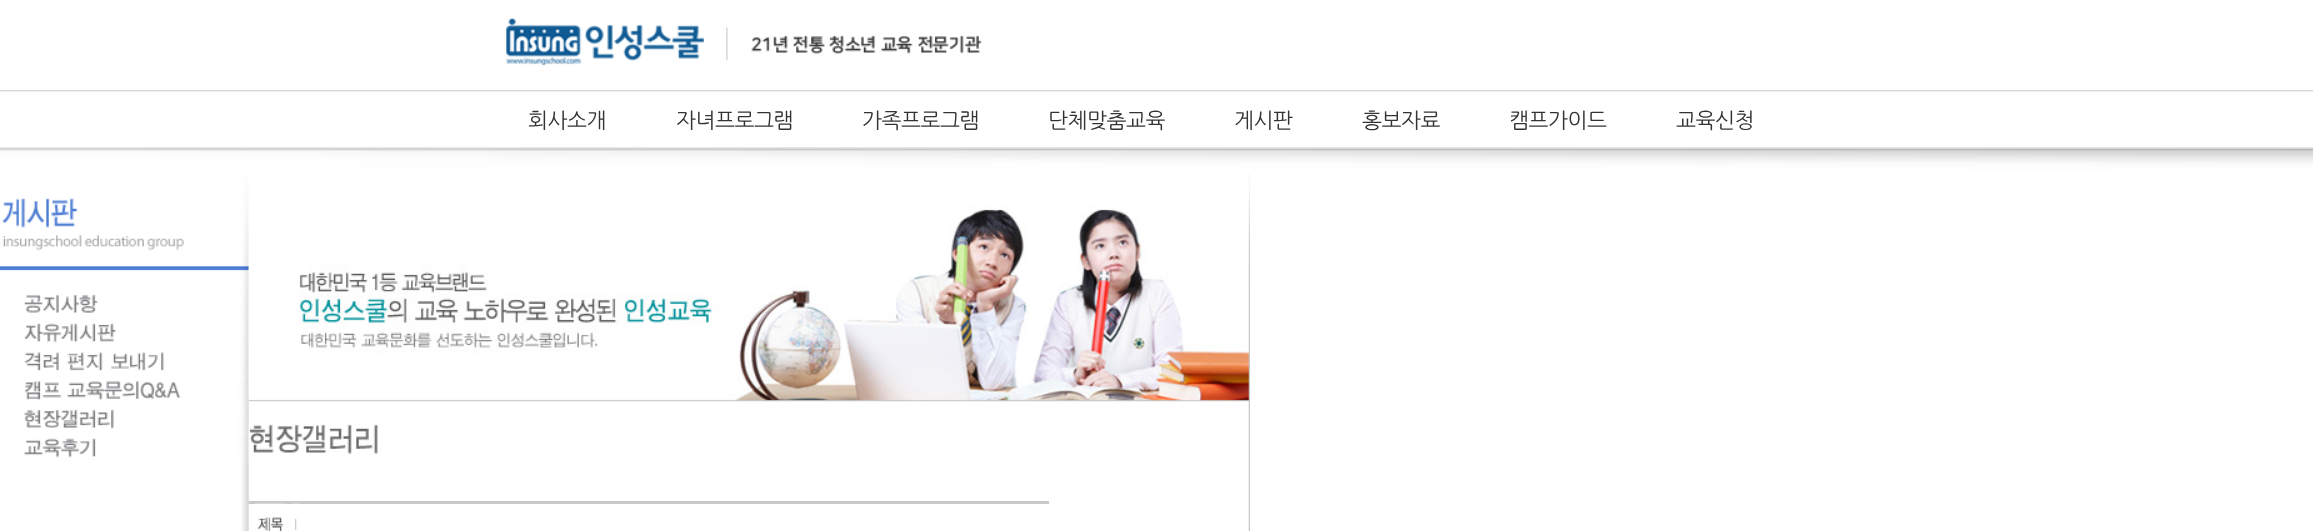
<?xml version="1.0" encoding="UTF-8"?>
<svg xmlns="http://www.w3.org/2000/svg" xmlns:xlink="http://www.w3.org/1999/xlink" width="2313" height="531">
  <rect width="100%" height="100%" fill="#ffffff" />
  <image x="1248" y="173" width="2" height="358" xlink:href="image13.png" />
  <image x="0" y="148" width="2313" height="26" xlink:href="image4.png" />
  <image x="0" y="90" width="2313" height="59" xlink:href="image1.png" />
  <image x="506" y="18" width="198" height="48" xlink:href="image2.png" />
  <image x="726" y="27" width="256" height="34" xlink:href="image3.png" />
  <image x="0" y="174" width="249" height="116" xlink:href="image5.png" />
  <image x="23" y="290" width="226" height="29" xlink:href="image6.png" />
  <image x="24" y="319" width="225" height="29" xlink:href="image7.png" />
  <image x="24" y="347" width="225" height="30" xlink:href="image8.png" />
  <image x="24" y="376" width="225" height="29" xlink:href="image9.png" />
  <image x="23" y="405" width="226" height="29" xlink:href="image10.png" />
  <image x="23" y="434" width="226" height="29" xlink:href="image11.png" />
  <rect x="248" y="501" width="801" height="3" fill="#c9c9c9" />
  <image x="241" y="462" width="8" height="69" xlink:href="image12.png" />
  <image x="248" y="174" width="1002" height="228" xlink:href="image14.png" />
  <image x="248" y="423" width="130" height="37" xlink:href="image15.png" />
  <image x="255" y="503" width="31" height="28" xlink:href="image16.png" />
  <image x="292" y="503" width="7" height="28" xlink:href="image17.png" />
  <text x="528" y="128" style="font-family: NanumGothic; font-size: 21.25px; letter-spacing: -0.5px; fill: #333333">회사소개</text>
  <text x="676" y="128" style="font-family: NanumGothic; font-size: 21.25px; letter-spacing: -0.5px; fill: #333333">자녀프로그램</text>
  <text x="862" y="128" style="font-family: NanumGothic; font-size: 21.25px; letter-spacing: -0.5px; fill: #333333">가족프로그램</text>
  <text x="1048" y="128" style="font-family: NanumGothic; font-size: 21.25px; letter-spacing: -0.5px; fill: #333333">단체맞춤교육</text>
  <text x="1234" y="128" style="font-family: NanumGothic; font-size: 21.25px; letter-spacing: -0.5px; fill: #333333">게시판</text>
  <text x="1362" y="128" style="font-family: NanumGothic; font-size: 21.25px; letter-spacing: -0.5px; fill: #333333">홍보자료</text>
  <text x="1509" y="128" style="font-family: NanumGothic; font-size: 21.25px; letter-spacing: -0.5px; fill: #333333">캠프가이드</text>
  <text x="1676" y="128" style="font-family: NanumGothic; font-size: 21.25px; letter-spacing: -0.5px; fill: #333333">교육신청</text>
</svg>
